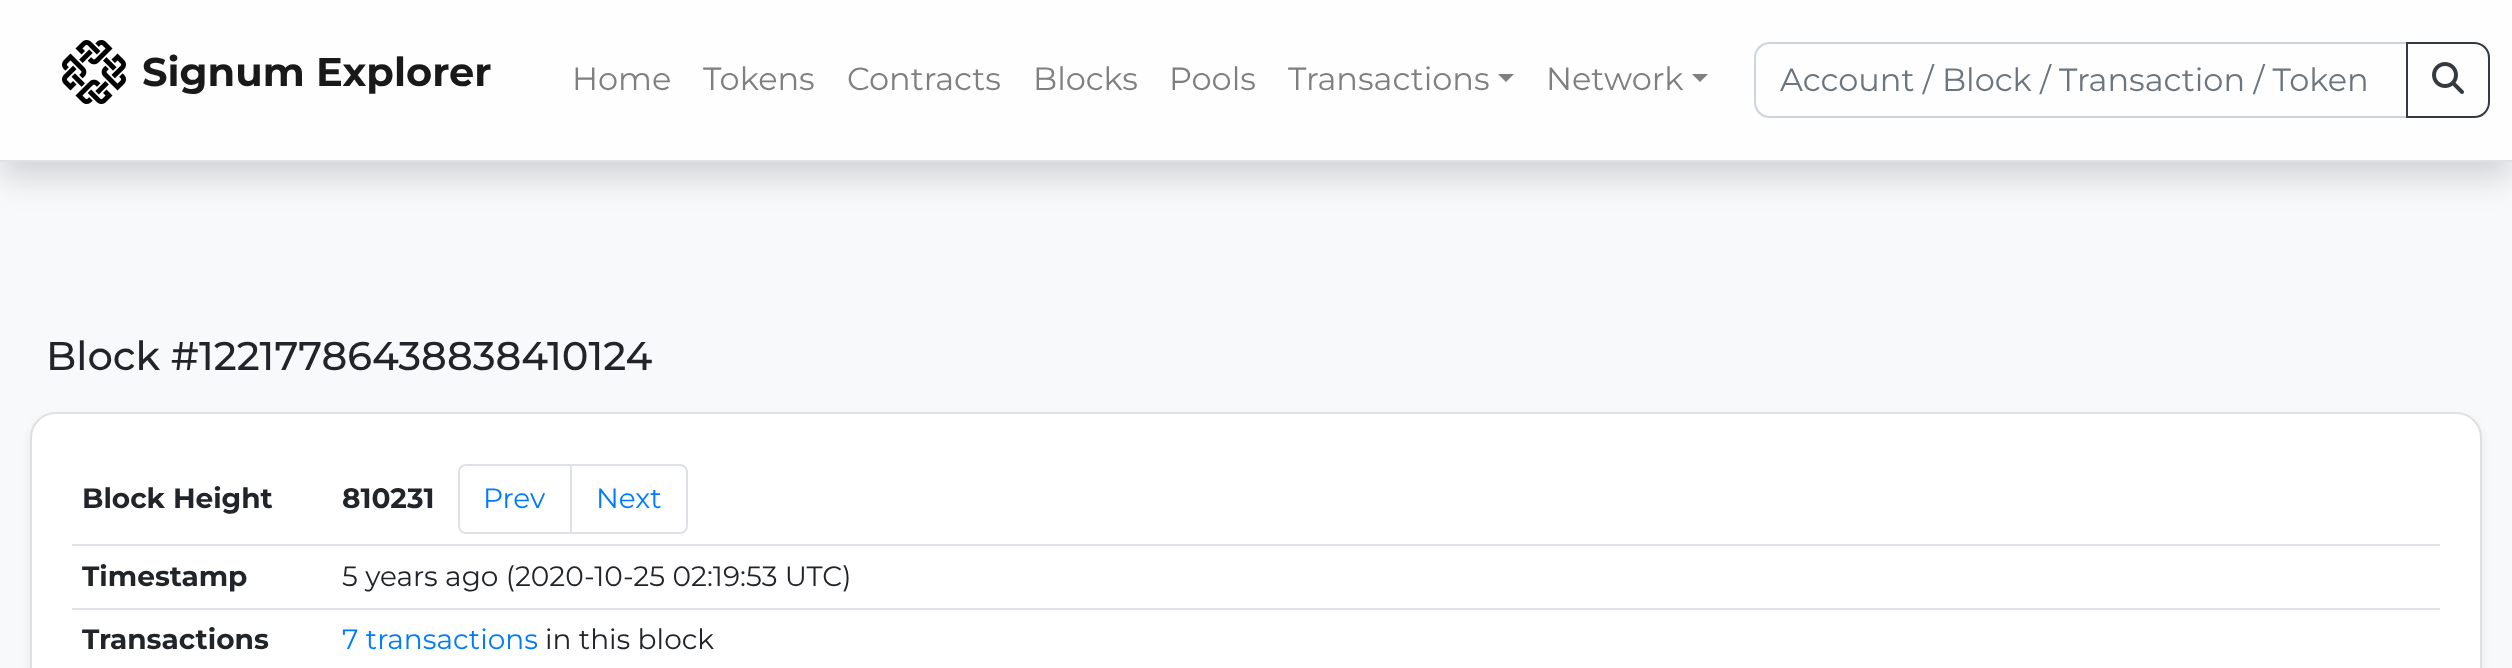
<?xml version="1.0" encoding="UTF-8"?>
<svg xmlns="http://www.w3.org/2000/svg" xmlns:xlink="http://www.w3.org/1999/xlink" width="2512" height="668">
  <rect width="100%" height="100%" fill="#f8f9fa" />
  <rect y="16" width="2512" height="162" fill="#000000" fill-opacity="0.15" filter="blur(16px)" />
  <rect width="2512" height="160" fill="#fefefe" />
  <rect y="160" width="2512" height="2" fill="#dee2e6" />
  <image x="62" y="40" width="64" height="64" xlink:href="image1.png" />
  <path d="M 1498 74 h 16 l -8 8 z" fill="#7f7f7f" />
  <path d="M 1692 74 h 16 l -8 8 z" fill="#7f7f7f" />
  <path d="M 1770 43 h 637 v 74 h -637 c -8.5 0 -15 -6.5 -15 -15 v -44 c 0 -8.5 6.5 -15 15 -15 z" fill="none" stroke="#ced4da" stroke-width="2" />
  <path d="M 2407 43 h 67 c 8.5 0 15 6.5 15 15 v 44 c 0 8.5 -6.5 15 -15 15 h -67 z" fill="none" stroke="#343a40" stroke-width="2" />
  <image x="2432" y="62" width="32" height="32" xlink:href="image2.png" />
  <rect x="30" y="416" width="2452" height="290" rx="26" fill="#000000" fill-opacity="0.07" filter="blur(4px)" />
  <rect x="30" y="412" width="2452" height="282" rx="26" fill="#ffffff" />
  <rect x="31" y="413" width="2450" height="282" rx="25" fill="none" stroke="#000000" stroke-opacity="0.12" stroke-width="2" />
  <path d="M 466 465 h 105 v 68 h -105 c -4 0 -7 -3 -7 -7 v -54 c 0 -4 3 -7 7 -7 z" fill="none" stroke="#dee2e6" stroke-width="2" />
  <path d="M 571 465 h 109 c 4 0 7 3 7 7 v 54 c 0 4 -3 7 -7 7 h -109 z" fill="#ffffff" stroke="#dee2e6" stroke-width="2" />
  <rect x="72" y="544" width="2368" height="2" fill="#dee2e6" />
  <rect x="72" y="608" width="2368" height="2" fill="#dee2e6" />
  <text x="142" y="86" style="font-family: Montserrat; font-size: 40px; font-weight: bold; fill: #191919">Signum Explorer</text>
  <text x="572" y="90" style="font-family: Montserrat; font-size: 32px; fill: #7f7f7f">Home</text>
  <text x="703" y="90" style="font-family: Montserrat; font-size: 32px; fill: #7f7f7f">Tokens</text>
  <text x="847" y="90" style="font-family: Montserrat; font-size: 32px; fill: #7f7f7f">Contracts</text>
  <text x="1033" y="90" style="font-family: Montserrat; font-size: 32px; fill: #7f7f7f">Blocks</text>
  <text x="1169" y="90" style="font-family: Montserrat; font-size: 32px; fill: #7f7f7f">Pools</text>
  <text x="1288" y="90" style="font-family: Montserrat; font-size: 32px; fill: #7f7f7f">Transactions</text>
  <text x="1546" y="90" style="font-family: Montserrat; font-size: 32px; fill: #7f7f7f">Network</text>
  <text x="1780" y="91" style="font-family: Montserrat; font-size: 32px; fill: #6c757d">Account / Block / Transaction / Token</text>
  <text x="46" y="370" style="font-family: Montserrat; font-size: 40px; font-weight: 500; fill: #212529">Block #12217786438838410124</text>
  <text x="82" y="508" style="font-family: Montserrat; font-size: 28px; font-weight: bold; fill: #212529">Block Height</text>
  <text x="342" y="508" style="font-family: Montserrat; font-size: 28px; font-weight: bold; fill: #212529">810231</text>
  <text x="483" y="508" style="font-family: Montserrat; font-size: 28px; fill: #007bff">Prev</text>
  <text x="596" y="508" style="font-family: Montserrat; font-size: 28px; fill: #007bff">Next</text>
  <text x="82" y="586" style="font-family: Montserrat; font-size: 28px; font-weight: bold; fill: #212529">Timestamp</text>
  <text x="342" y="586" style="font-family: Montserrat; font-size: 28px; fill: #212529">5 years ago (2020-10-25 02:19:53 UTC)</text>
  <text x="82" y="649" style="font-family: Montserrat; font-size: 28px; font-weight: bold; fill: #212529">Transactions</text>
  <text x="342" y="649" style="font-family: Montserrat; font-size: 28px; fill: #007bff">7 transactions</text>
  <text x="545" y="649" style="font-family: Montserrat; font-size: 28px; fill: #212529">in this block</text>
</svg>
